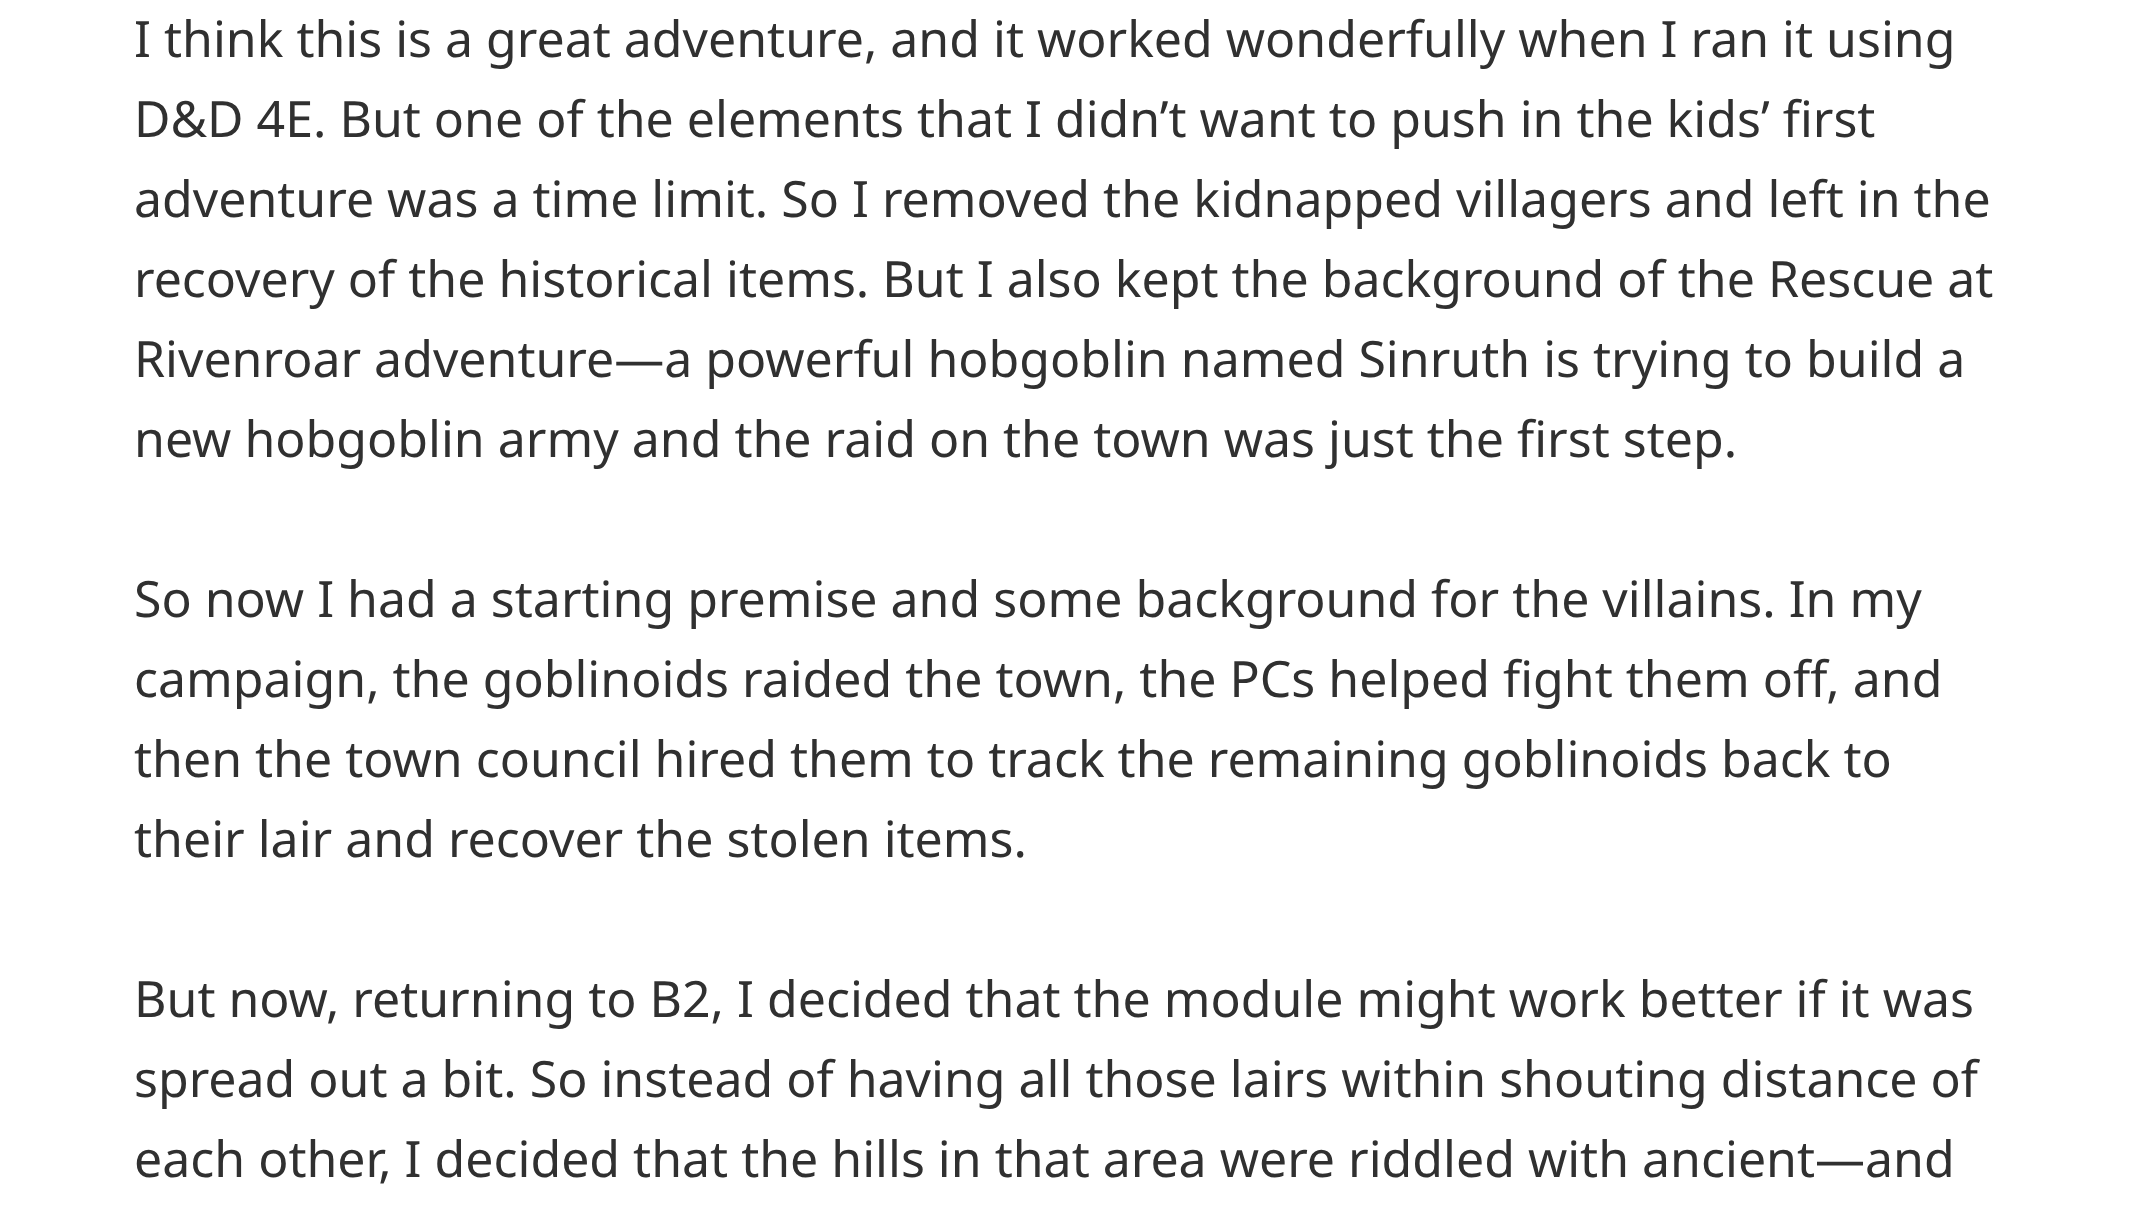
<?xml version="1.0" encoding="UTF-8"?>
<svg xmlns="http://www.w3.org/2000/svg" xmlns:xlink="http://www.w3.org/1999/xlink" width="2141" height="1211">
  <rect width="100%" height="100%" fill="#ffffff" />
  <text x="134" y="57" style="font-family: Noto Sans; font-size: 50px; fill: #303030">I think this is a great adventure, and it worked wonderfully when I ran it using</text>
  <text x="134" y="137" style="font-family: Noto Sans; font-size: 50px; fill: #303030">D&amp;D 4E. But one of the elements that I didn’t want to push in the kids’ first</text>
  <text x="134" y="217" style="font-family: Noto Sans; font-size: 50px; fill: #303030">adventure was a time limit. So I removed the kidnapped villagers and left in the</text>
  <text x="134" y="297" style="font-family: Noto Sans; font-size: 50px; fill: #303030">recovery of the historical items. But I also kept the background of the Rescue at</text>
  <text x="134" y="377" style="font-family: Noto Sans; font-size: 50px; fill: #303030">Rivenroar adventure—a powerful hobgoblin named Sinruth is trying to build a</text>
  <text x="134" y="457" style="font-family: Noto Sans; font-size: 50px; fill: #303030">new hobgoblin army and the raid on the town was just the first step.</text>
  <text x="134" y="617" style="font-family: Noto Sans; font-size: 50px; fill: #303030">So now I had a starting premise and some background for the villains. In my</text>
  <text x="134" y="697" style="font-family: Noto Sans; font-size: 50px; fill: #303030">campaign, the goblinoids raided the town, the PCs helped fight them off, and</text>
  <text x="134" y="777" style="font-family: Noto Sans; font-size: 50px; fill: #303030">then the town council hired them to track the remaining goblinoids back to</text>
  <text x="134" y="857" style="font-family: Noto Sans; font-size: 50px; fill: #303030">their lair and recover the stolen items.</text>
  <text x="134" y="1017" style="font-family: Noto Sans; font-size: 50px; fill: #303030">But now, returning to B2, I decided that the module might work better if it was</text>
  <text x="134" y="1097" style="font-family: Noto Sans; font-size: 50px; fill: #303030">spread out a bit. So instead of having all those lairs within shouting distance of</text>
  <text x="134" y="1177" style="font-family: Noto Sans; font-size: 50px; fill: #303030">each other, I decided that the hills in that area were riddled with ancient—and</text>
</svg>
